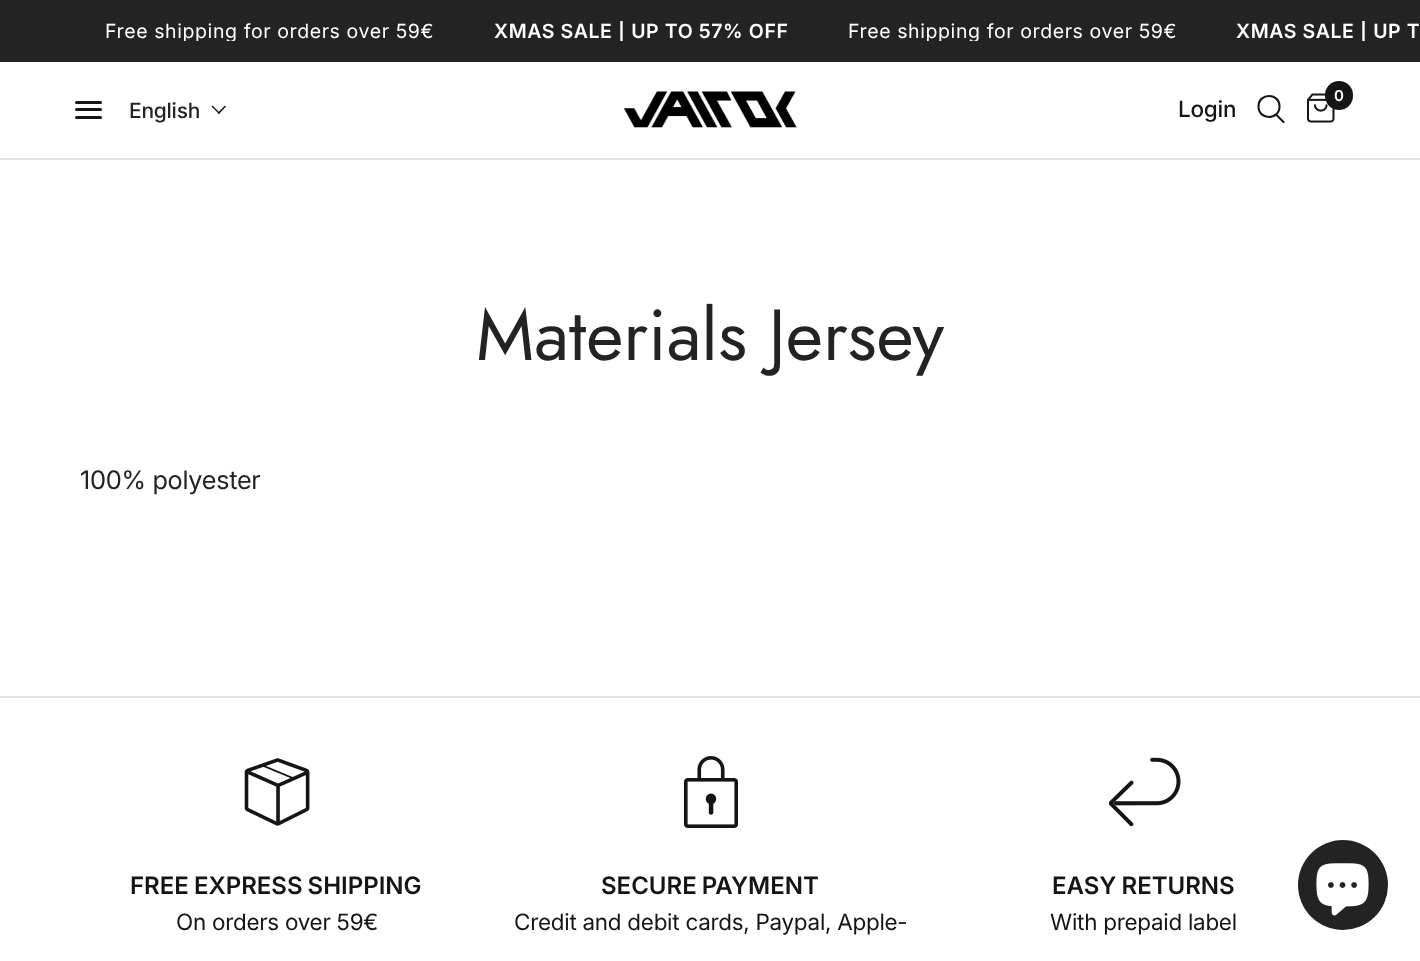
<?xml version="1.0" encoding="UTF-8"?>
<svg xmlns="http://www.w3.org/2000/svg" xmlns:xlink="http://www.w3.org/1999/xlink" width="1420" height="961">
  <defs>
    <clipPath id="clip1"><rect y="21" width="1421" height="20" /></clipPath>
  </defs>
  <rect width="100%" height="100%" fill="#ffffff" />
  <rect width="1420" height="62" fill="#232323" />
  <rect y="158" width="1420" height="2" fill="#e2e2e2" />
  <rect x="75" y="101" width="27" height="3" rx="1.5" fill="#151515" />
  <rect x="75" y="108" width="27" height="3" rx="1.5" fill="#151515" />
  <rect x="75" y="116" width="27" height="3" rx="1.5" fill="#151515" />
  <path d="M 225 105.5 l 1 1 l -7 7.5 l -1.5 -1 z" fill="#1a1a1a" />
  <path d="M 212.5 105.5 l 7.5 7.5 l -1 1 l -7.5 -7.5 z" fill="#1a1a1a" />
  <image x="623" y="91" width="174" height="37" xlink:href="image1.png" />
  <path d="M 1276.5 115 l 7 7 m -4 -15.5 c 0 14 -21 14 -21 0 c 0 -14 21 -14 21 0 z" fill="none" stroke="#151515" stroke-width="2.1" stroke-linecap="round" stroke-linejoin="round" />
  <image x="1307" y="93" width="28" height="30" xlink:href="image2.png" />
  <rect x="1325" y="81" width="28" height="29" rx="14" fill="#151515" />
  <rect y="696" width="1420" height="2" fill="#e2e2e2" />
  <image x="244" y="758" width="66" height="68" xlink:href="image3.png" />
  <image x="684" y="756" width="54" height="72" xlink:href="image4.png" />
  <image x="1109" y="757" width="72" height="70" xlink:href="image5.png" />
  <circle cx="1343" cy="885" r="45" fill="#232323" />
  <image x="1316" y="863" width="53" height="53" xlink:href="image6.png" />
  <g clip-path="url(#clip1)">
    <text x="105" y="38" style="font-family: 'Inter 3'; font-size: 19.5px; letter-spacing: 0.6px; fill: #ffffff">Free shipping for orders over 59€</text>
    <text x="494" y="38" style="font-family: Inter; font-size: 19.5px; font-weight: 600; letter-spacing: 0.6px; fill: #ffffff">XMAS SALE | UP TO 57% OFF</text>
    <text x="848" y="38" style="font-family: 'Inter 3'; font-size: 19.5px; letter-spacing: 0.6px; fill: #ffffff">Free shipping for orders over 59€</text>
    <text x="1236" y="38" style="font-family: Inter; font-size: 19.5px; font-weight: 600; letter-spacing: 0.6px; fill: #ffffff">XMAS SALE | UP T</text>
  </g>
  <text x="129" y="118" style="font-family: Inter; font-size: 21px; font-weight: 500; letter-spacing: -0.25px; fill: #232323">English</text>
  <text x="1178" y="117" style="font-family: Inter; font-size: 22.5px; font-weight: 500; letter-spacing: -0.25px; fill: #151515">Login</text>
  <text x="1334" y="101" style="font-family: Inter; font-size: 15px; font-weight: 600; letter-spacing: -0.25px; fill: #ffffff">0</text>
  <text x="476" y="360" style="font-family: Jost; font-size: 72px; fill: #232323">Materials Jersey</text>
  <text x="80" y="489" style="font-family: Inter; font-size: 25.5px; letter-spacing: -0.25px; fill: #232323">100% polyester</text>
  <text x="130" y="894" word-spacing="-1" style="font-family: Inter; font-size: 24px; font-weight: 600; fill: #151515">FREE EXPRESS SHIPPING</text>
  <text x="176" y="930" style="font-family: 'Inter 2'; font-size: 22.5px; letter-spacing: -0.25px; fill: #151515">On orders over 59€</text>
  <text x="601" y="894" word-spacing="-1" style="font-family: Inter; font-size: 24px; font-weight: 600; fill: #151515">SECURE PAYMENT</text>
  <text x="514" y="930" style="font-family: 'Inter 2'; font-size: 22.5px; letter-spacing: -0.25px; fill: #151515">Credit and debit cards, Paypal, Apple-</text>
  <text x="1052" y="894" word-spacing="-1" style="font-family: Inter; font-size: 24px; font-weight: 600; fill: #151515">EASY RETURNS</text>
  <text x="1050" y="930" style="font-family: 'Inter 2'; font-size: 22.5px; letter-spacing: -0.25px; fill: #151515">With prepaid label</text>
</svg>
